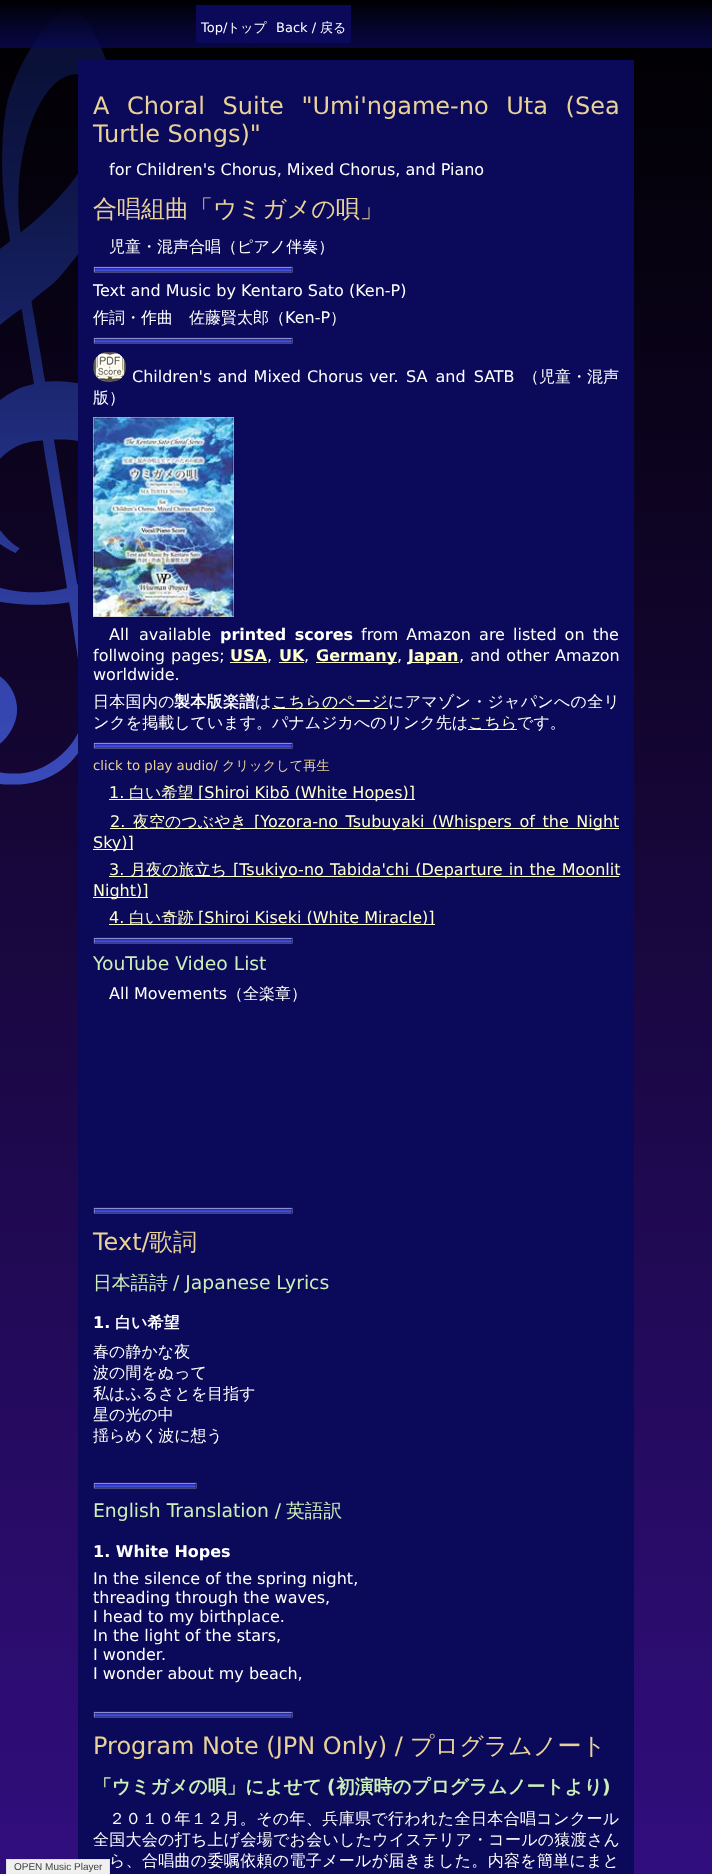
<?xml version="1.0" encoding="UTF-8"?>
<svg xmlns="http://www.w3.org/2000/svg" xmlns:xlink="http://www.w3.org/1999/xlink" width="712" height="1874">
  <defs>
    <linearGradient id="g1" gradientUnits="userSpaceOnUse" x1="356" y1="0" x2="356" y2="48"><stop offset="0" stop-color="#000000" /><stop offset="1" stop-color="#0a095a" stop-opacity="0.71" /></linearGradient>
  </defs>
  <rect width="100%" height="100%" fill="#000000" />
  <image x="0" y="9" width="712" height="1865" xlink:href="image1.png" />
  <rect y="1" width="712" height="47" fill="url(#g1)" />
  <rect x="196" y="5" width="155" height="38" fill="#0a095a" />
  <rect x="78" y="60" width="556" height="1814" fill="#0a095a" />
  <rect x="7" y="1860" width="102" height="14" fill="#f0f0f0" />
  <rect x="6" y="1859" width="104" height="1" fill="#e0e0e0" />
  <rect x="109" y="1859" width="1" height="15" fill="#e0e0e0" />
  <rect x="6" y="1859" width="1" height="15" fill="#e0e0e0" />
  <image x="93" y="266" width="200" height="7" xlink:href="image2.png" />
  <image x="93" y="337" width="200" height="7" xlink:href="image2.png" />
  <image x="93" y="352" width="33" height="30" xlink:href="image3.png" />
  <image x="94" y="353" width="32" height="29" xlink:href="image4.png" />
  <image x="93" y="417" width="141" height="200" xlink:href="image5.png" />
  <rect x="230" y="662" width="37" height="1" fill="#ffffcc" />
  <rect x="279" y="662" width="25" height="1" fill="#ffffcc" />
  <rect x="316" y="662" width="81" height="1" fill="#ffffcc" />
  <rect x="408" y="662" width="51" height="1" fill="#ffffcc" />
  <rect x="272" y="708" width="116" height="1" fill="#ffffcc" />
  <rect x="468" y="729" width="49" height="1" fill="#ffffcc" />
  <image x="93" y="742" width="200" height="7" xlink:href="image2.png" />
  <rect x="109" y="799" width="306" height="1" fill="#ffffcc" />
  <rect x="110" y="828" width="509" height="1" fill="#ffffcc" />
  <rect x="93" y="849" width="40" height="1" fill="#ffffcc" />
  <rect x="109" y="876" width="510" height="1" fill="#ffffcc" />
  <rect x="93" y="897" width="55" height="1" fill="#ffffcc" />
  <rect x="109" y="924" width="326" height="1" fill="#ffffcc" />
  <image x="93" y="937" width="200" height="7" xlink:href="image2.png" />
  <image x="93" y="1207" width="200" height="7" xlink:href="image2.png" />
  <image x="93" y="1482" width="104" height="7" xlink:href="image6.png" />
  <image x="93" y="1711" width="200" height="7" xlink:href="image2.png" />
  <text x="201" y="32" style="font-family: DejaVu Sans; font-size: 13px; fill: #ffffff">Top/</text>
  <text x="227" y="32" style="font-family: WenQuanYi Zen Hei; font-size: 13px; font-weight: 500; fill: #ffffff">トップ</text>
  <text x="276" y="32" style="font-family: DejaVu Sans; font-size: 13px; fill: #ffffff">Back /</text>
  <text x="320" y="32" style="font-family: WenQuanYi Zen Hei; font-size: 13px; font-weight: 500; fill: #ffffff">戻る</text>
  <text x="14" y="1870" style="font-family: Liberation Sans; font-size: 10px; fill: #3c3c3c">OPEN Music Player</text>
  <text x="93" y="114" word-spacing="10" style="font-family: DejaVu Sans; font-size: 24px; fill: #e9d297">A Choral Suite "Umi'ngame-no Uta (Sea</text>
  <text x="93" y="142" style="font-family: DejaVu Sans; font-size: 24px; fill: #e9d297">Turtle Songs)"</text>
  <text x="109" y="175" style="font-family: DejaVu Sans; font-size: 16px; fill: #ffffff">for Children's Chorus, Mixed Chorus, and Piano</text>
  <text x="93" y="217" style="font-family: WenQuanYi Zen Hei; font-size: 24px; font-weight: 500; fill: #e9d297">合唱組曲「ウミガメの唄」</text>
  <text x="109" y="252" style="font-family: WenQuanYi Zen Hei; font-size: 16px; font-weight: 500; fill: #ffffff">児童・混声合唱（ピアノ伴奏）</text>
  <text x="93" y="296" style="font-family: DejaVu Sans; font-size: 16px; fill: #ffffff">Text and Music by Kentaro Sato (Ken-P)</text>
  <text x="93" y="323" style="font-family: WenQuanYi Zen Hei; font-size: 16px; font-weight: 500; fill: #ffffff">作詞・作曲　佐藤賢太郎（</text>
  <text x="285" y="323" style="font-family: DejaVu Sans; font-size: 16px; fill: #ffffff">Ken-P</text>
  <text x="330" y="323" style="font-family: WenQuanYi Zen Hei; font-size: 16px; font-weight: 500; fill: #ffffff">）</text>
  <text x="132" y="382" word-spacing="1" style="font-family: DejaVu Sans; font-size: 16px; fill: #ffffff">Children's and Mixed Chorus ver.</text>
  <text x="406" y="382" word-spacing="3" style="font-family: DejaVu Sans; font-size: 16px; fill: #ffffff">SA and SATB</text>
  <text x="523" y="382" style="font-family: WenQuanYi Zen Hei; font-size: 16px; font-weight: 500; fill: #ffffff">（児童・混声</text>
  <text x="93" y="403" style="font-family: WenQuanYi Zen Hei; font-size: 16px; font-weight: 500; fill: #ffffff">版）</text>
  <text x="109" y="640" word-spacing="5" style="font-family: DejaVu Sans; font-size: 16px; fill: #ffffff">All available</text>
  <text x="220" y="640" word-spacing="3" style="font-family: DejaVu Sans; font-size: 16px; font-weight: bold; fill: #ffffff">printed scores</text>
  <text x="361" y="640" word-spacing="3" style="font-family: DejaVu Sans; font-size: 16px; fill: #ffffff">from Amazon are listed on the</text>
  <text x="93" y="661" word-spacing="1" style="font-family: DejaVu Sans; font-size: 16px; fill: #ffffff">follwoing pages;</text>
  <text x="230" y="661" style="font-family: DejaVu Sans; font-size: 16px; font-weight: bold; fill: #ffffcc">USA</text>
  <text x="267" y="661" style="font-family: DejaVu Sans; font-size: 16px; fill: #ffffff">,</text>
  <text x="279" y="661" style="font-family: DejaVu Sans; font-size: 16px; font-weight: bold; fill: #ffffcc">UK</text>
  <text x="304" y="661" style="font-family: DejaVu Sans; font-size: 16px; fill: #ffffff">,</text>
  <text x="316" y="661" style="font-family: DejaVu Sans; font-size: 16px; font-weight: bold; fill: #ffffcc">Germany</text>
  <text x="397" y="661" style="font-family: DejaVu Sans; font-size: 16px; fill: #ffffff">,</text>
  <text x="408" y="661" style="font-family: DejaVu Sans; font-size: 16px; font-weight: bold; fill: #ffffcc">Japan</text>
  <text x="459" y="661" word-spacing="1" style="font-family: DejaVu Sans; font-size: 16px; fill: #ffffff">, and other Amazon</text>
  <text x="93" y="680" style="font-family: DejaVu Sans; font-size: 16px; fill: #ffffff">worldwide.</text>
  <text x="93" y="707" style="font-family: WenQuanYi Zen Hei; font-size: 16px; font-weight: 500; letter-spacing: 0.3px; fill: #ffffff">日本国内の</text>
  <text x="174" y="707" style="font-family: WenQuanYi Zen Hei; font-size: 16px; font-weight: bold; letter-spacing: 0.3px; fill: #ffffff">製本版楽譜</text>
  <text x="255" y="707" style="font-family: WenQuanYi Zen Hei; font-size: 16px; font-weight: 500; fill: #ffffff">は</text>
  <text x="272" y="707" style="font-family: WenQuanYi Zen Hei; font-size: 16px; font-weight: 500; letter-spacing: 0.25px; fill: #ffffcc">こちらのページ</text>
  <text x="388" y="707" style="font-family: WenQuanYi Zen Hei; font-size: 16px; font-weight: 500; letter-spacing: 0.25px; fill: #ffffff">にアマゾン・ジャパンへの全リ</text>
  <text x="93" y="728" style="font-family: WenQuanYi Zen Hei; font-size: 16px; font-weight: 500; fill: #ffffff">ンクを掲載しています。パナムジカへのリンク先は</text>
  <text x="468" y="728" style="font-family: WenQuanYi Zen Hei; font-size: 16px; font-weight: 500; fill: #ffffcc">こちら</text>
  <text x="517" y="728" style="font-family: WenQuanYi Zen Hei; font-size: 16px; font-weight: 500; fill: #ffffff">です。</text>
  <text x="93" y="770" style="font-family: DejaVu Sans; font-size: 13.25px; fill: #e9d297">click to play audio/</text>
  <text x="222" y="770" style="font-family: WenQuanYi Zen Hei; font-size: 13.25px; font-weight: 500; fill: #e9d297">クリックして再生</text>
  <text x="109" y="798" style="font-family: DejaVu Sans; font-size: 16px; fill: #ffffcc">1.</text>
  <text x="129" y="798" style="font-family: WenQuanYi Zen Hei; font-size: 16px; font-weight: 500; fill: #ffffcc">白い希望</text>
  <text x="198" y="798" style="font-family: DejaVu Sans; font-size: 16px; fill: #ffffcc">[Shiroi Kibō (White Hopes)]</text>
  <text x="110" y="827" style="font-family: DejaVu Sans; font-size: 16px; fill: #ffffcc">2.</text>
  <text x="133" y="827" style="font-family: WenQuanYi Zen Hei; font-size: 16px; font-weight: 500; fill: #ffffcc">夜空のつぶやき</text>
  <text x="254" y="827" word-spacing="2.5" style="font-family: DejaVu Sans; font-size: 16px; fill: #ffffcc">[Yozora-no Tsubuyaki (Whispers of the Night</text>
  <text x="93" y="848" style="font-family: DejaVu Sans; font-size: 16px; fill: #ffffcc">Sky)]</text>
  <text x="109" y="875" style="font-family: DejaVu Sans; font-size: 16px; fill: #ffffcc">3.</text>
  <text x="130" y="875" style="font-family: WenQuanYi Zen Hei; font-size: 16px; font-weight: 500; fill: #ffffcc">月夜の旅立ち</text>
  <text x="233" y="875" word-spacing="1" style="font-family: DejaVu Sans; font-size: 16px; fill: #ffffcc">[Tsukiyo-no Tabida'chi (Departure in the Moonlit</text>
  <text x="93" y="896" style="font-family: DejaVu Sans; font-size: 16px; fill: #ffffcc">Night)]</text>
  <text x="109" y="923" style="font-family: DejaVu Sans; font-size: 16px; fill: #ffffcc">4.</text>
  <text x="129" y="923" style="font-family: WenQuanYi Zen Hei; font-size: 16px; font-weight: 500; fill: #ffffcc">白い奇跡</text>
  <text x="198" y="923" style="font-family: DejaVu Sans; font-size: 16px; fill: #ffffcc">[Shiroi Kiseki (White Miracle)]</text>
  <text x="93" y="970" style="font-family: DejaVu Sans; font-size: 18.75px; fill: #cdefb9">YouTube Video List</text>
  <text x="109" y="999" style="font-family: DejaVu Sans; font-size: 16px; fill: #ffffff">All Movements</text>
  <text x="227" y="999" style="font-family: WenQuanYi Zen Hei; font-size: 16px; font-weight: 500; fill: #ffffff">（全楽章）</text>
  <text x="93" y="1250" style="font-family: DejaVu Sans; font-size: 24px; fill: #e9d297">Text/</text>
  <text x="149" y="1250" style="font-family: WenQuanYi Zen Hei; font-size: 24px; font-weight: 500; fill: #e9d297">歌詞</text>
  <text x="93" y="1289" style="font-family: WenQuanYi Zen Hei; font-size: 18.75px; font-weight: 500; fill: #cdefb9">日本語詩</text>
  <text x="173" y="1289" style="font-family: DejaVu Sans; font-size: 18.75px; fill: #cdefb9">/ Japanese Lyrics</text>
  <text x="93" y="1328" style="font-family: DejaVu Sans; font-size: 16px; font-weight: bold; fill: #ffffff">1.</text>
  <text x="115" y="1328" style="font-family: WenQuanYi Zen Hei; font-size: 16px; font-weight: bold; fill: #ffffff">白い希望</text>
  <text x="93" y="1357" style="font-family: WenQuanYi Zen Hei; font-size: 16px; font-weight: 500; fill: #ffffff">春の静かな夜</text>
  <text x="93" y="1378" style="font-family: WenQuanYi Zen Hei; font-size: 16px; font-weight: 500; fill: #ffffff">波の間をぬって</text>
  <text x="93" y="1399" style="font-family: WenQuanYi Zen Hei; font-size: 16px; font-weight: 500; fill: #ffffff">私はふるさとを目指す</text>
  <text x="93" y="1420" style="font-family: WenQuanYi Zen Hei; font-size: 16px; font-weight: 500; fill: #ffffff">星の光の中</text>
  <text x="93" y="1441" style="font-family: WenQuanYi Zen Hei; font-size: 16px; font-weight: 500; fill: #ffffff">揺らめく波に想う</text>
  <text x="93" y="1517" style="font-family: DejaVu Sans; font-size: 18.75px; fill: #cdefb9">English Translation /</text>
  <text x="286" y="1517" style="font-family: WenQuanYi Zen Hei; font-size: 18.75px; font-weight: 500; fill: #cdefb9">英語訳</text>
  <text x="93" y="1557" style="font-family: DejaVu Sans; font-size: 16px; font-weight: bold; fill: #ffffff">1. White Hopes</text>
  <text x="93" y="1584" style="font-family: DejaVu Sans; font-size: 16px; fill: #ffffff">In the silence of the spring night,</text>
  <text x="93" y="1603" style="font-family: DejaVu Sans; font-size: 16px; fill: #ffffff">threading through the waves,</text>
  <text x="93" y="1622" style="font-family: DejaVu Sans; font-size: 16px; fill: #ffffff">I head to my birthplace.</text>
  <text x="93" y="1641" style="font-family: DejaVu Sans; font-size: 16px; fill: #ffffff">In the light of the stars,</text>
  <text x="93" y="1660" style="font-family: DejaVu Sans; font-size: 16px; fill: #ffffff">I wonder.</text>
  <text x="93" y="1679" style="font-family: DejaVu Sans; font-size: 16px; fill: #ffffff">I wonder about my beach,</text>
  <text x="93" y="1754" style="font-family: DejaVu Sans; font-size: 24px; fill: #e9d297">Program Note (JPN Only) /</text>
  <text x="410" y="1754" style="font-family: WenQuanYi Zen Hei; font-size: 24px; font-weight: 500; fill: #e9d297">プログラムノート</text>
  <text x="93" y="1793" style="font-family: WenQuanYi Zen Hei; font-size: 18.75px; font-weight: bold; fill: #cdefb9">「ウミガメの唄」によせて</text>
  <text x="327" y="1793" style="font-family: DejaVu Sans; font-size: 18.75px; font-weight: bold; fill: #cdefb9">(</text>
  <text x="336" y="1793" style="font-family: WenQuanYi Zen Hei; font-size: 18.75px; font-weight: bold; fill: #cdefb9">初演時のプログラムノートより</text>
  <text x="602" y="1793" style="font-family: DejaVu Sans; font-size: 18.75px; font-weight: bold; fill: #cdefb9">)</text>
  <text x="109" y="1824" style="font-family: WenQuanYi Zen Hei; font-size: 16px; font-weight: 500; letter-spacing: 0.35px; fill: #ffffff">２０１０年１２月。その年、兵庫県で行われた全日本合唱コンクール</text>
  <text x="93" y="1845" style="font-family: WenQuanYi Zen Hei; font-size: 16px; font-weight: 500; letter-spacing: 0.25px; fill: #ffffff">全国大会の打ち上げ会場でお会いしたウイステリア・コールの猿渡さん</text>
  <text x="109" y="1866" style="font-family: WenQuanYi Zen Hei; font-size: 16px; font-weight: 500; letter-spacing: 0.3px; fill: #ffffff">ら、合唱曲の委嘱依頼の電子メールが届きました。内容を簡単にまと</text>
</svg>
